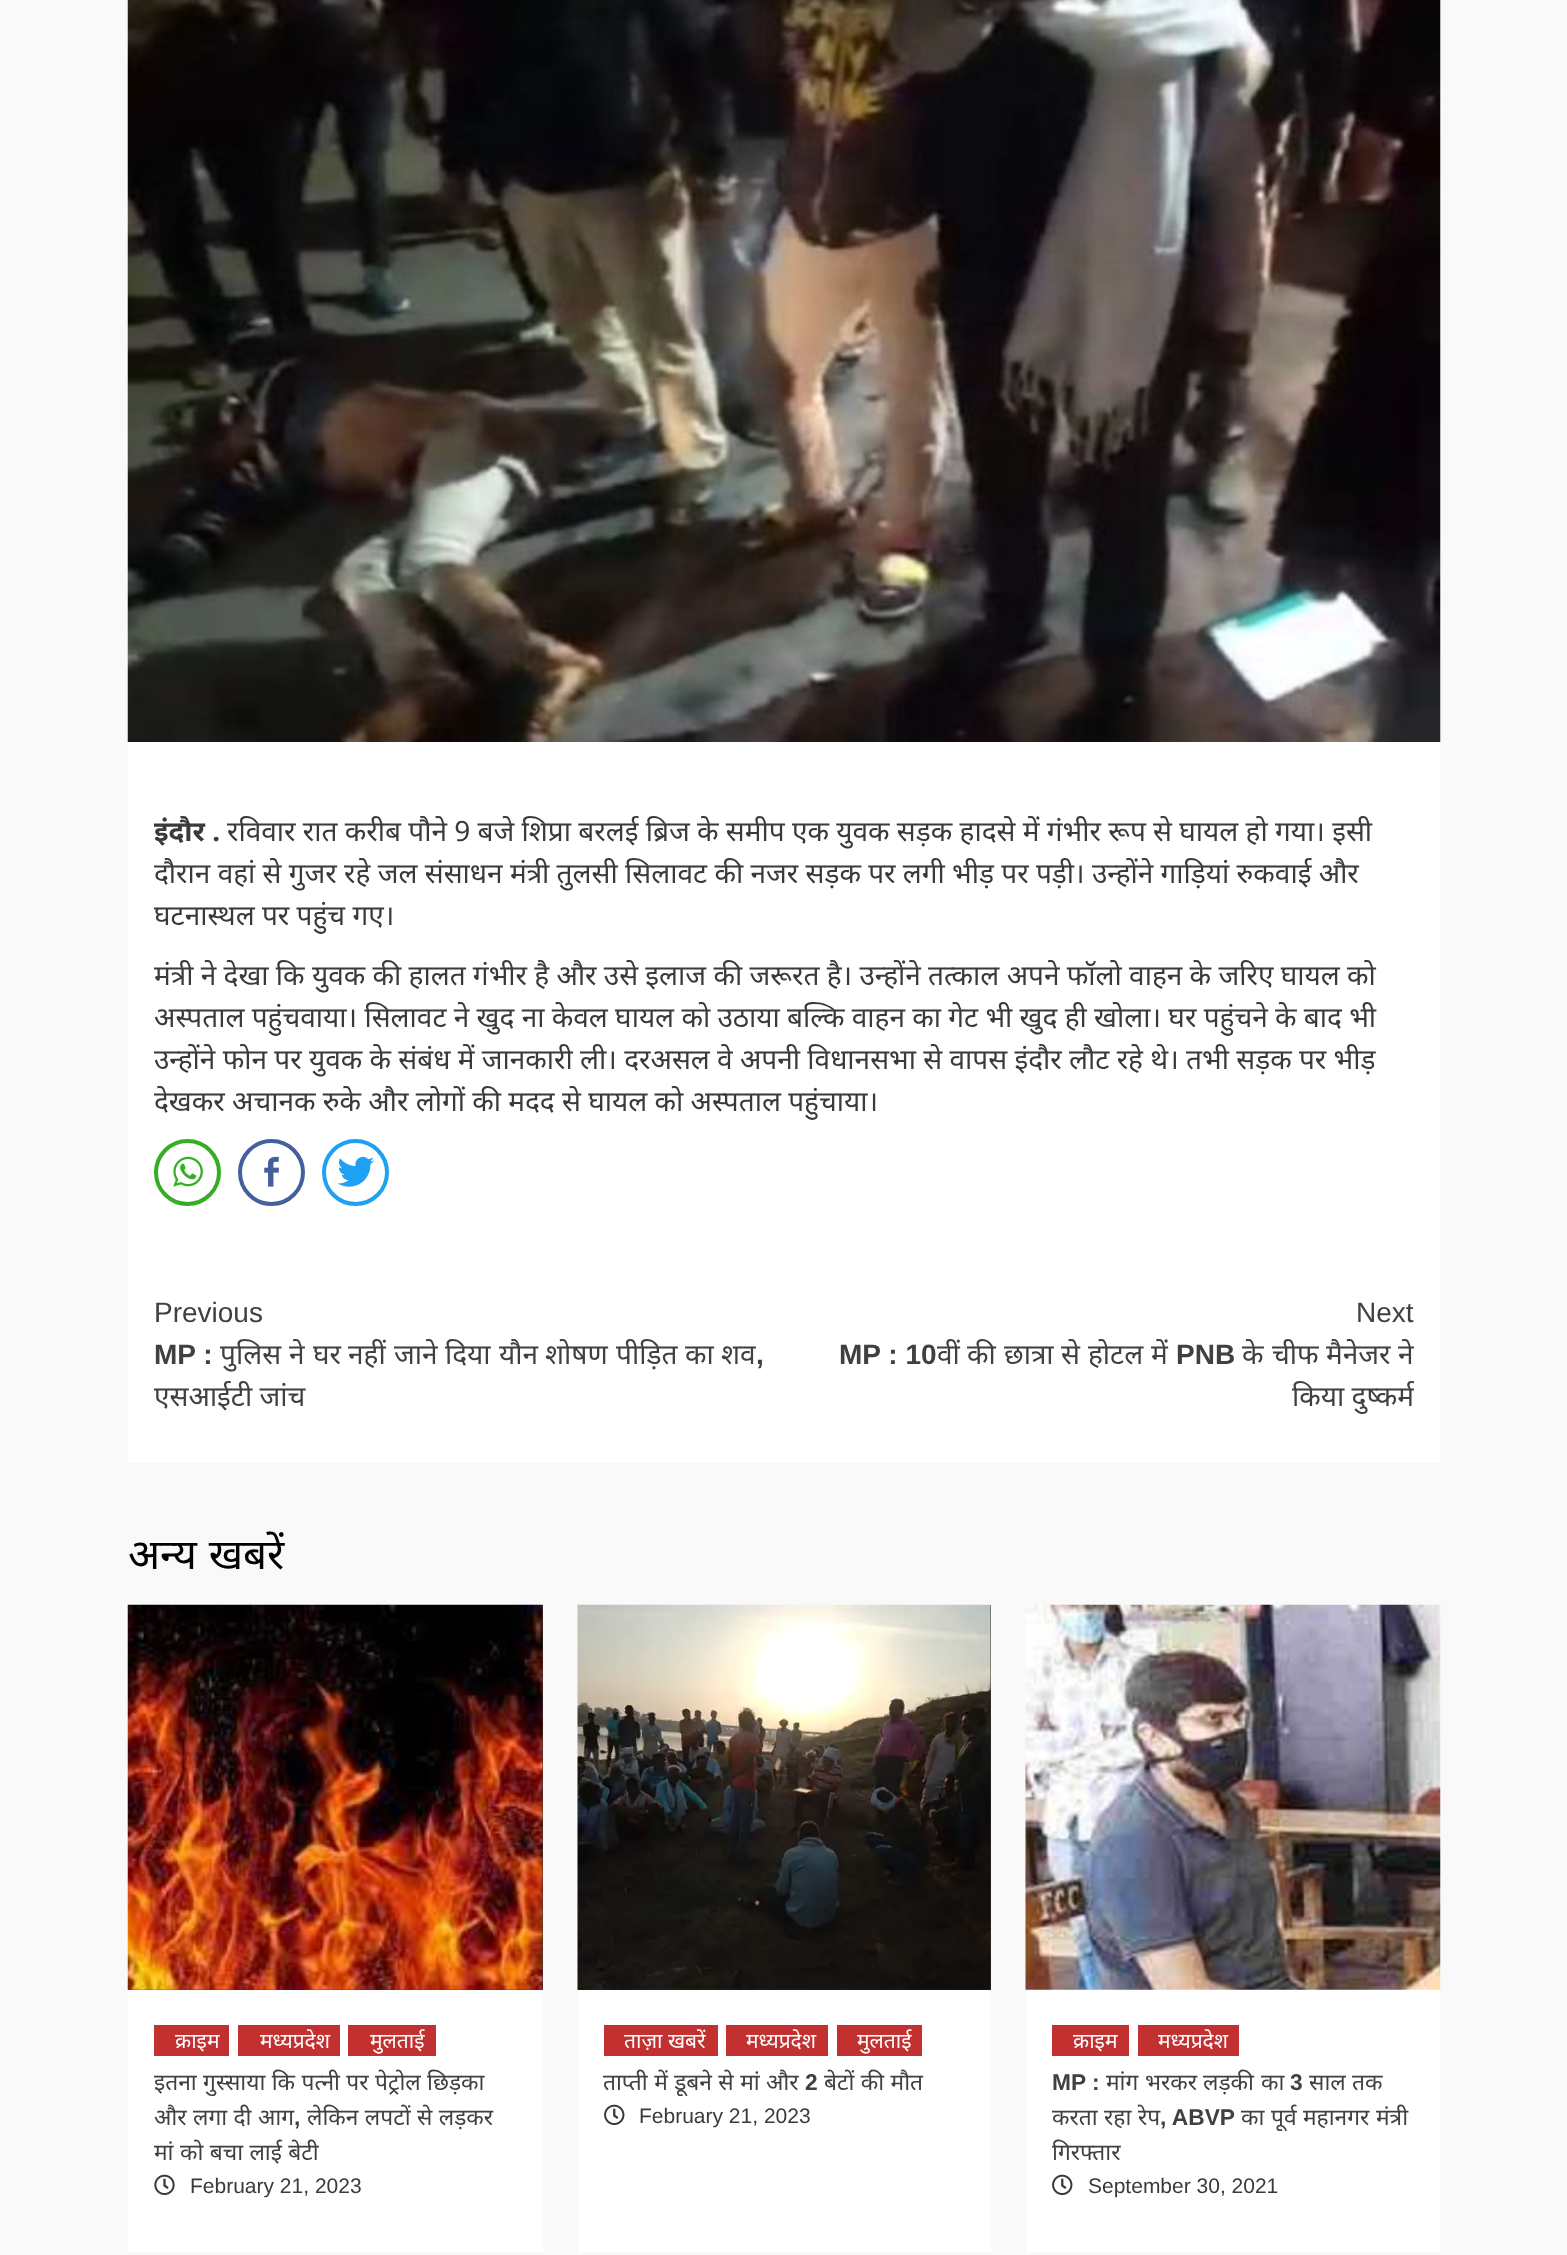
<?xml version="1.0" encoding="UTF-8"?>
<svg xmlns="http://www.w3.org/2000/svg" xmlns:xlink="http://www.w3.org/1999/xlink" width="1567" height="2255">
  <defs>
    <clipPath id="clip1"><rect x="154" y="1276" width="1260" height="161" /></clipPath>
  </defs>
  <rect width="100%" height="100%" fill="#f9f9f9" />
  <rect x="128" y="742" width="1312" height="721" fill="#ffffff" />
  <image x="127" y="0" width="1314" height="742" xlink:href="image1.png" />
  <circle cx="187.5" cy="1172.5" r="31.5" fill="none" stroke="#34af23" stroke-width="4" />
  <image x="173" y="1156" width="30" height="31" xlink:href="image2.png" />
  <circle cx="271.5" cy="1172.5" r="31.5" fill="none" stroke="#43609c" stroke-width="4" />
  <image x="264" y="1156" width="15" height="31" xlink:href="image3.png" />
  <circle cx="355.5" cy="1172.5" r="31.5" fill="none" stroke="#1da1f2" stroke-width="4" />
  <image x="337" y="1156" width="37" height="31" xlink:href="image4.png" />
  <rect x="128" y="1990" width="415" height="262" fill="#ffffff" />
  <rect x="128" y="1605" width="415" height="385" fill="#333333" />
  <image x="127" y="1604" width="416" height="386" xlink:href="image5.png" />
  <rect x="154" y="2025" width="75" height="31" fill="#c23030" />
  <rect x="238" y="2025" width="102" height="31" fill="#c23030" />
  <rect x="348" y="2025" width="88" height="31" fill="#c23030" />
  <image x="154" y="2174" width="21" height="22" xlink:href="image6.png" />
  <rect x="578" y="1990" width="413" height="262" fill="#ffffff" />
  <rect x="578" y="1605" width="413" height="385" fill="#333333" />
  <image x="577" y="1604" width="414" height="386" xlink:href="image7.png" />
  <rect x="604" y="2025" width="114" height="31" fill="#c23030" />
  <rect x="726" y="2025" width="102" height="31" fill="#c23030" />
  <rect x="837" y="2025" width="85" height="31" fill="#c23030" />
  <image x="604" y="2104" width="21" height="22" xlink:href="image8.png" />
  <rect x="1026" y="1989" width="414" height="263" fill="#ffffff" />
  <image x="1025" y="1604" width="416" height="386" xlink:href="image9.png" />
  <rect x="1052" y="2025" width="77" height="31" fill="#c23030" />
  <rect x="1138" y="2025" width="101" height="31" fill="#c23030" />
  <image x="1052" y="2174" width="21" height="22" xlink:href="image8.png" />
  <text x="154" y="841" style="font-family: Noto Sans; font-size: 28px; font-weight: bold; fill: #3a3a3a">इंदौर .</text>
  <text x="227" y="841" style="font-family: Noto Sans; font-size: 28px; fill: #3a3a3a">रविवार रात करीब पौने 9 बजे शिप्रा बरलई ब्रिज के समीप एक युवक सड़क हादसे में गंभीर रूप से घायल हो गया। इसी</text>
  <text x="154" y="883" style="font-family: Noto Sans; font-size: 28px; fill: #3a3a3a">दौरान वहां से गुजर रहे जल संसाधन मंत्री तुलसी सिलावट की नजर सड़क पर लगी भीड़ पर पड़ी। उन्होंने गाड़ियां रुकवाई और</text>
  <text x="154" y="925" style="font-family: Noto Sans; font-size: 28px; fill: #3a3a3a">घटनास्थल पर पहुंच गए।</text>
  <text x="154" y="985" style="font-family: Noto Sans; font-size: 28px; fill: #3a3a3a">मंत्री ने देखा कि युवक की हालत गंभीर है और उसे इलाज की जरूरत है। उन्होंने तत्काल अपने फॉलो वाहन के जरिए घायल को</text>
  <text x="154" y="1027" style="font-family: Noto Sans; font-size: 28px; fill: #3a3a3a">अस्पताल पहुंचवाया। सिलावट ने खुद ना केवल घायल को उठाया बल्कि वाहन का गेट भी खुद ही खोला। घर पहुंचने के बाद भी</text>
  <text x="154" y="1069" style="font-family: Noto Sans; font-size: 28px; fill: #3a3a3a">उन्होंने फोन पर युवक के संबंध में जानकारी ली। दरअसल वे अपनी विधानसभा से वापस इंदौर लौट रहे थे। तभी सड़क पर भीड़</text>
  <text x="154" y="1111" style="font-family: Noto Sans; font-size: 28px; fill: #3a3a3a">देखकर अचानक रुके और लोगों की मदद से घायल को अस्पताल पहुंचाया।</text>
  <text x="154" y="1322" style="font-family: Liberation Sans; font-size: 28px; fill: #404040">Previous</text>
  <text x="154" y="1364" style="font-family: Liberation Sans; font-size: 28px; font-weight: bold; fill: #404040">MP :</text>
  <text x="220" y="1364" style="font-family: Noto Sans; font-size: 28px; fill: #404040">पुलिस</text>
  <text x="289" y="1364" style="font-family: Noto Sans; font-size: 28px; fill: #404040">ने</text>
  <text x="313" y="1364" style="font-family: Noto Sans; font-size: 28px; fill: #404040">घर</text>
  <text x="348" y="1364" style="font-family: Noto Sans; font-size: 28px; fill: #404040">नहीं</text>
  <text x="394" y="1364" style="font-family: Noto Sans; font-size: 28px; fill: #404040">जाने</text>
  <text x="445" y="1364" style="font-family: Noto Sans; font-size: 28px; fill: #404040">दिया</text>
  <text x="499" y="1364" style="font-family: Noto Sans; font-size: 28px; fill: #404040">यौन</text>
  <text x="545" y="1364" style="font-family: Noto Sans; font-size: 28px; fill: #404040">शोषण</text>
  <text x="616" y="1364" style="font-family: Noto Sans; font-size: 28px; fill: #404040">पीड़ित</text>
  <text x="685" y="1364" style="font-family: Noto Sans; font-size: 28px; fill: #404040">का</text>
  <text x="721" y="1364" style="font-family: Noto Sans; font-size: 28px; fill: #404040">शव</text>
  <text x="756" y="1364" style="font-family: Liberation Sans; font-size: 28px; font-weight: bold; fill: #404040">,</text>
  <text x="154" y="1406" style="font-family: Noto Sans; font-size: 28px; fill: #404040">एसआईटी जांच</text>
  <text x="1356" y="1322" style="font-family: Liberation Sans; font-size: 28px; fill: #404040">Next</text>
  <text x="839" y="1364" style="font-family: Liberation Sans; font-size: 28px; font-weight: bold; fill: #404040">MP : 10</text>
  <text x="937" y="1364" style="font-family: Noto Sans; font-size: 28px; fill: #404040">वीं</text>
  <text x="967" y="1364" style="font-family: Noto Sans; font-size: 28px; fill: #404040">की</text>
  <text x="1004" y="1364" style="font-family: Noto Sans; font-size: 28px; fill: #404040">छात्रा</text>
  <text x="1061" y="1364" style="font-family: Noto Sans; font-size: 28px; fill: #404040">से</text>
  <text x="1088" y="1364" style="font-family: Noto Sans; font-size: 28px; fill: #404040">होटल</text>
  <text x="1151" y="1364" style="font-family: Noto Sans; font-size: 28px; fill: #404040">में</text>
  <text x="1176" y="1364" style="font-family: Liberation Sans; font-size: 28px; font-weight: bold; fill: #404040">PNB</text>
  <text x="1242" y="1364" style="font-family: Noto Sans; font-size: 28px; fill: #404040">के</text>
  <text x="1272" y="1364" style="font-family: Noto Sans; font-size: 28px; fill: #404040">चीफ</text>
  <text x="1326" y="1364" style="font-family: Noto Sans; font-size: 28px; fill: #404040">मैनेजर</text>
  <g clip-path="url(#clip1)">
    <text x="1398" y="1364" style="font-family: Noto Sans; font-size: 28px; fill: #404040">ने</text>
    <text x="1292" y="1406" style="font-family: Noto Sans; font-size: 28px; fill: #404040">किया दुष्कर्म</text>
  </g>
  <text x="128" y="1569" word-spacing="1" style="font-family: Noto Sans; font-size: 42px; fill: #000000">अन्य खबरें</text>
  <text x="175" y="2048" style="font-family: Noto Sans; font-size: 21px; fill: #ffffff">क्राइम</text>
  <text x="260" y="2048" style="font-family: Noto Sans; font-size: 21px; fill: #ffffff">मध्यप्रदेश</text>
  <text x="370" y="2048" style="font-family: Noto Sans; font-size: 21px; fill: #ffffff">मुलताई</text>
  <text x="154" y="2090" word-spacing="0.5" style="font-family: Noto Sans; font-size: 22.75px; fill: #404040">इतना गुस्साया कि पत्नी पर पेट्रोल छिड़का</text>
  <text x="154" y="2125" word-spacing="0.5" style="font-family: Noto Sans; font-size: 22.75px; fill: #404040">और लगा दी आग</text>
  <text x="294" y="2125" style="font-family: Liberation Sans; font-size: 22.75px; font-weight: bold; fill: #404040">,</text>
  <text x="307" y="2125" word-spacing="0.5" style="font-family: Noto Sans; font-size: 22.75px; fill: #404040">लेकिन लपटों से लड़कर</text>
  <text x="154" y="2160" word-spacing="0.5" style="font-family: Noto Sans; font-size: 22.75px; fill: #404040">मां को बचा लाई बेटी</text>
  <text x="190" y="2193" style="font-family: Liberation Sans; font-size: 21px; fill: #3a3a3a">February 21, 2023</text>
  <text x="624" y="2048" style="font-family: Noto Sans; font-size: 21px; fill: #ffffff">ताज़ा खबरें</text>
  <text x="746" y="2048" style="font-family: Noto Sans; font-size: 21px; fill: #ffffff">मध्यप्रदेश</text>
  <text x="857" y="2048" style="font-family: Noto Sans; font-size: 21px; fill: #ffffff">मुलताई</text>
  <text x="603" y="2090" word-spacing="0.5" style="font-family: Noto Sans; font-size: 22.75px; fill: #404040">ताप्ती में डूबने से मां और</text>
  <text x="805" y="2090" style="font-family: Liberation Sans; font-size: 22.75px; font-weight: bold; fill: #404040">2</text>
  <text x="824" y="2090" word-spacing="0.5" style="font-family: Noto Sans; font-size: 22.75px; fill: #404040">बेटों की मौत</text>
  <text x="639" y="2123" style="font-family: Liberation Sans; font-size: 21px; fill: #3a3a3a">February 21, 2023</text>
  <text x="1073" y="2048" style="font-family: Noto Sans; font-size: 21px; fill: #ffffff">क्राइम</text>
  <text x="1158" y="2048" style="font-family: Noto Sans; font-size: 21px; fill: #ffffff">मध्यप्रदेश</text>
  <text x="1052" y="2090" style="font-family: Liberation Sans; font-size: 22.75px; font-weight: bold; fill: #404040">MP :</text>
  <text x="1106" y="2090" style="font-family: Noto Sans; font-size: 22.75px; fill: #404040">मांग</text>
  <text x="1145" y="2090" style="font-family: Noto Sans; font-size: 22.75px; fill: #404040">भरकर</text>
  <text x="1203" y="2090" style="font-family: Noto Sans; font-size: 22.75px; fill: #404040">लड़की</text>
  <text x="1261" y="2090" style="font-family: Noto Sans; font-size: 22.75px; fill: #404040">का</text>
  <text x="1290" y="2090" style="font-family: Liberation Sans; font-size: 22.75px; font-weight: bold; fill: #404040">3</text>
  <text x="1309" y="2090" style="font-family: Noto Sans; font-size: 22.75px; fill: #404040">साल</text>
  <text x="1352" y="2090" style="font-family: Noto Sans; font-size: 22.75px; fill: #404040">तक</text>
  <text x="1052" y="2125" style="font-family: Noto Sans; font-size: 22.75px; fill: #404040">करता</text>
  <text x="1104" y="2125" style="font-family: Noto Sans; font-size: 22.75px; fill: #404040">रहा</text>
  <text x="1138" y="2125" style="font-family: Noto Sans; font-size: 22.75px; fill: #404040">रेप</text>
  <text x="1160" y="2125" style="font-family: Liberation Sans; font-size: 22.75px; font-weight: bold; fill: #404040">, ABVP</text>
  <text x="1241" y="2125" style="font-family: Noto Sans; font-size: 22.75px; fill: #404040">का</text>
  <text x="1271" y="2125" style="font-family: Noto Sans; font-size: 22.75px; fill: #404040">पूर्व</text>
  <text x="1303" y="2125" style="font-family: Noto Sans; font-size: 22.75px; fill: #404040">महानगर</text>
  <text x="1376" y="2125" style="font-family: Noto Sans; font-size: 22.75px; fill: #404040">मंत्री</text>
  <text x="1052" y="2160" style="font-family: Noto Sans; font-size: 22.75px; fill: #404040">गिरफ्तार</text>
  <text x="1088" y="2193" style="font-family: Liberation Sans; font-size: 21px; fill: #3a3a3a">September 30, 2021</text>
</svg>
